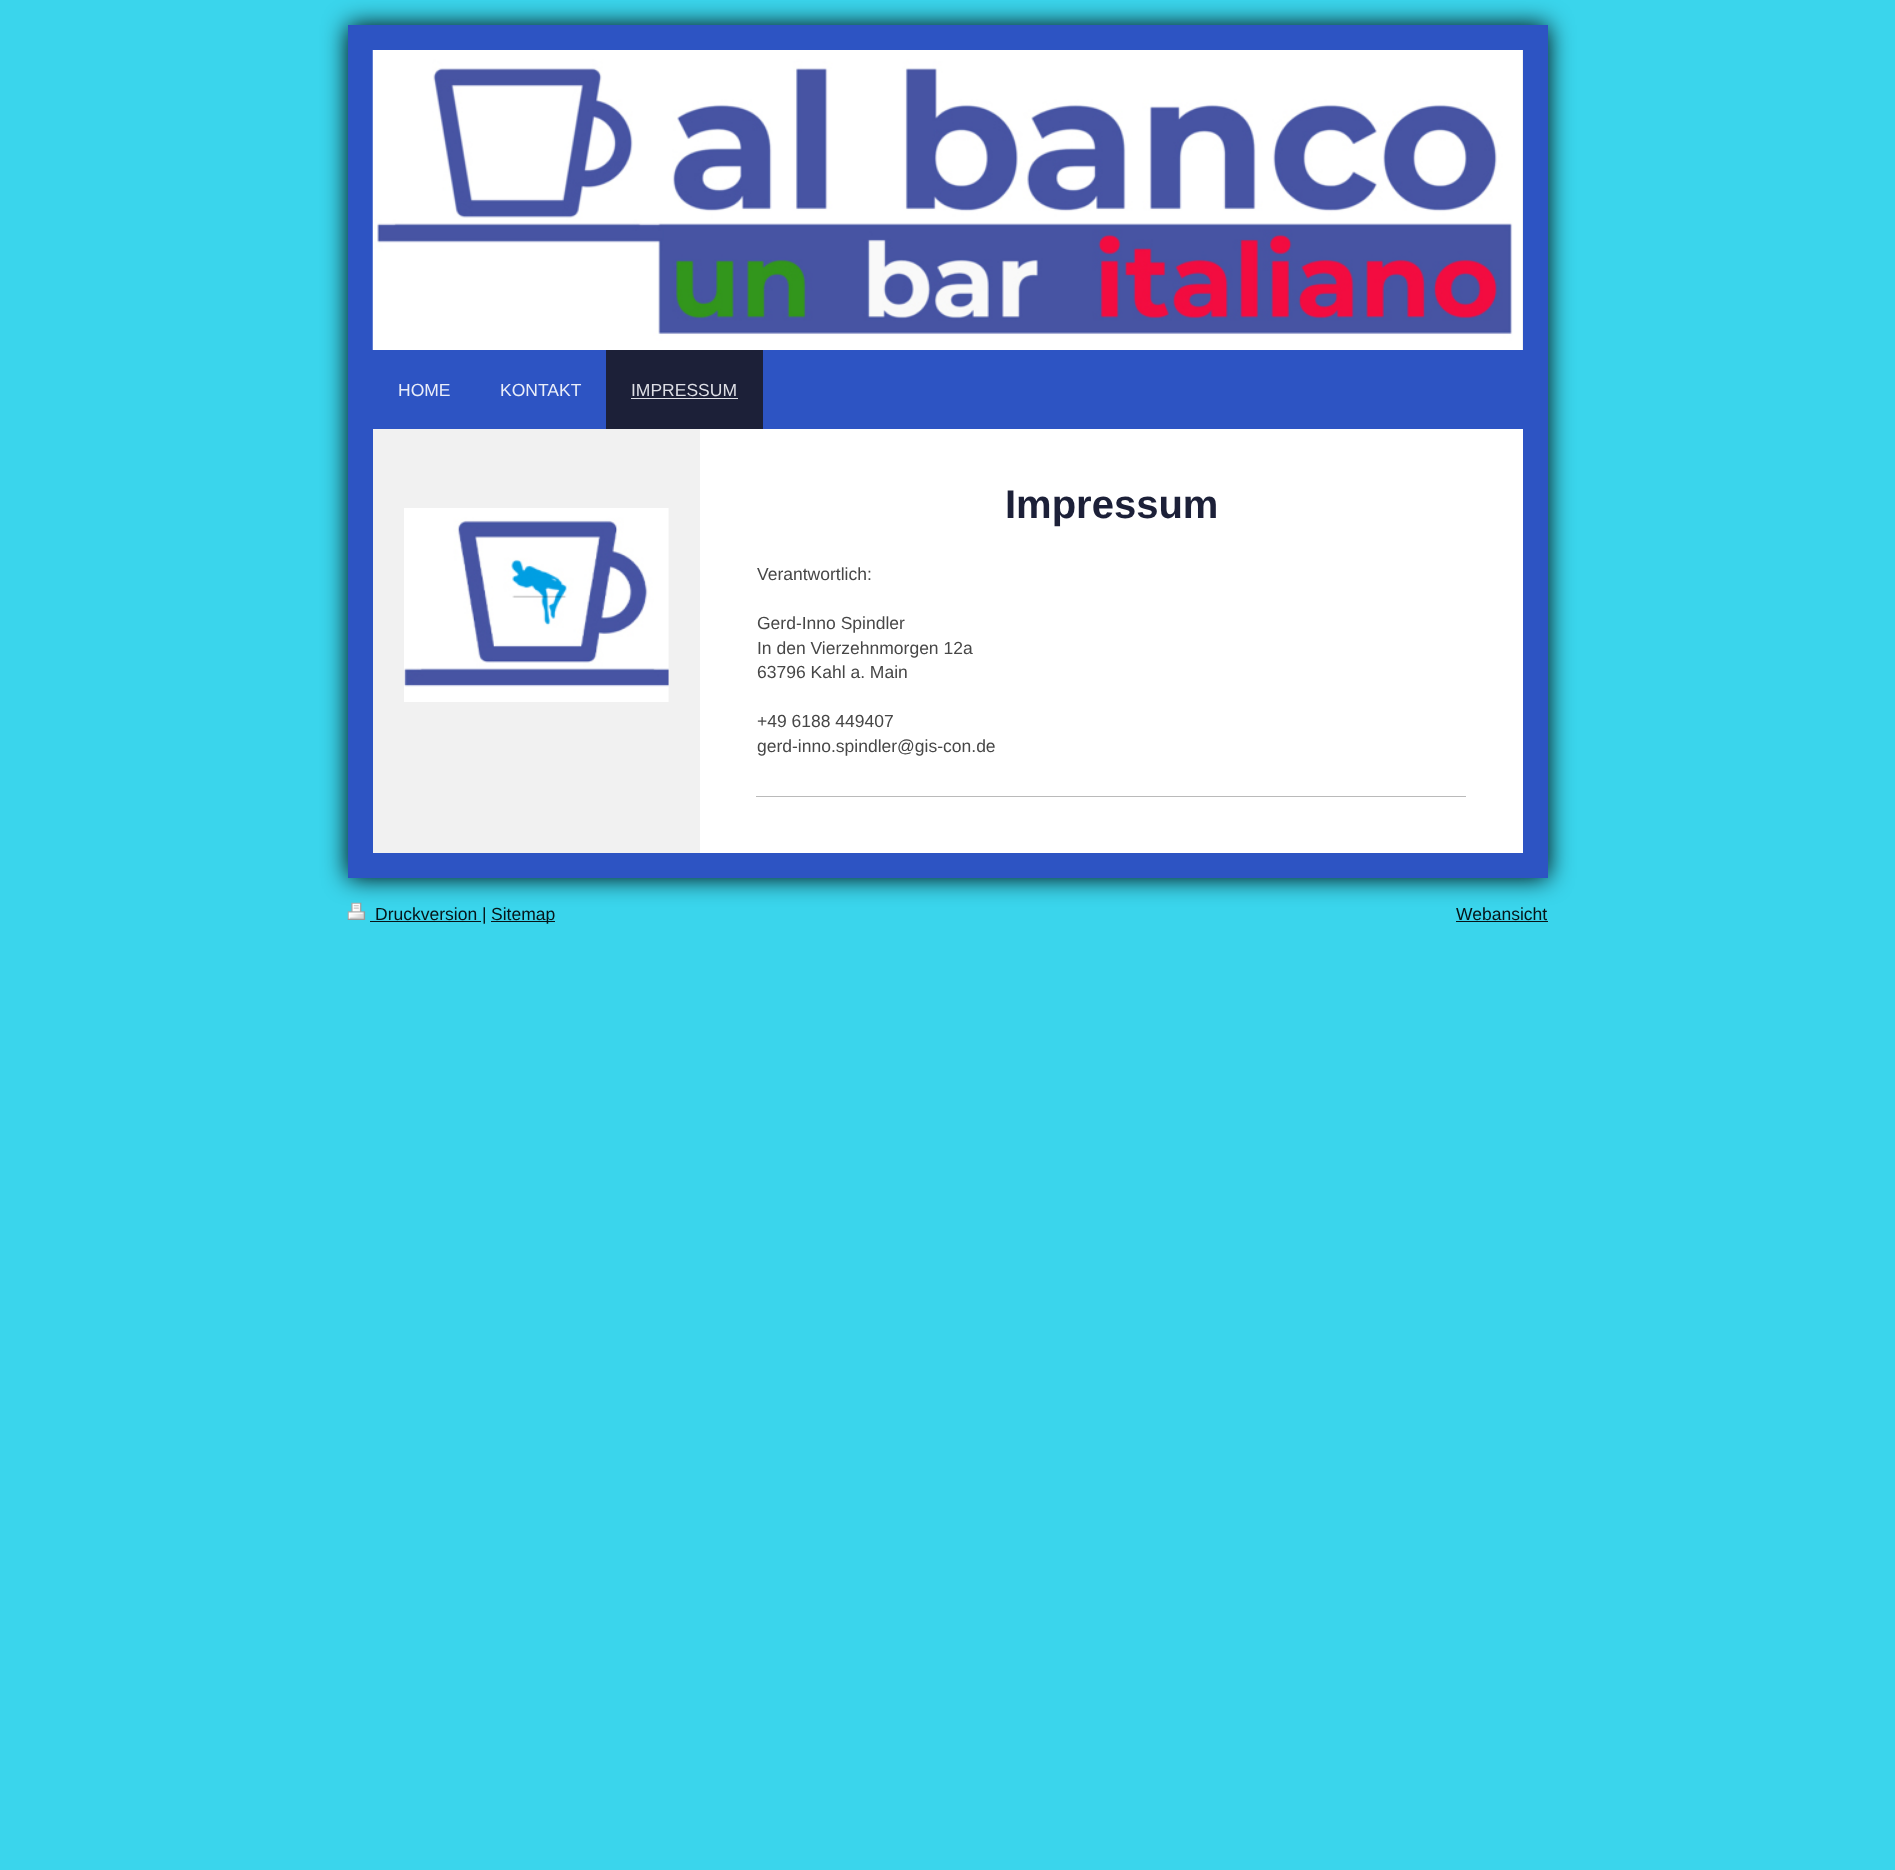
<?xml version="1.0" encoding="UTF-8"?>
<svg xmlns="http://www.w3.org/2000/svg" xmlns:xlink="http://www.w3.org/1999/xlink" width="1895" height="1870">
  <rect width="100%" height="100%" fill="#3ad5ec" />
  <rect x="348" y="25" width="1200" height="853" fill="#000000" filter="blur(12.5px)" />
  <rect x="348" y="25" width="1200" height="853" fill="#2d54c3" />
  <rect x="1522" y="50" width="1" height="300" fill="#eeeeee" />
  <image x="372" y="50" width="1151" height="300" xlink:href="image1.png" />
  <rect x="606" y="350" width="157" height="79" fill="#1c2038" />
  <rect x="631" y="398" width="107" height="1" fill="#dedfe6" />
  <rect x="700" y="429" width="823" height="424" fill="#ffffff" />
  <rect x="373" y="429" width="327" height="424" fill="#f1f1f1" />
  <rect x="756" y="796" width="710" height="1" fill="#bababa" />
  <image x="404" y="508" width="265" height="194" xlink:href="image2.png" />
  <image x="347" y="902" width="19" height="18" xlink:href="image3.png" />
  <rect x="370" y="921" width="111" height="1" fill="#061518" />
  <rect x="491" y="921" width="64" height="1" fill="#061518" />
  <rect x="1456" y="921" width="92" height="1" fill="#061518" />
  <text x="398" y="396" style="font-family: Liberation Sans; font-size: 17.5px; fill: #eaeef9">HOME</text>
  <text x="500" y="396" style="font-family: Liberation Sans; font-size: 17.5px; fill: #eaeef9">KONTAKT</text>
  <text x="631" y="396" style="font-family: Liberation Sans; font-size: 17.5px; fill: #dedfe6">IMPRESSUM</text>
  <text x="1005" y="518" style="font-family: Liberation Sans; font-size: 40px; font-weight: bold; fill: #1c2038">Impressum</text>
  <text x="757" y="580" style="font-family: Liberation Sans; font-size: 17.5px; fill: #474747">Verantwortlich:</text>
  <text x="757" y="629" style="font-family: Liberation Sans; font-size: 17.5px; fill: #474747">Gerd-Inno Spindler</text>
  <text x="757" y="654" style="font-family: Liberation Sans; font-size: 17.5px; fill: #474747">In den Vierzehnmorgen 12a</text>
  <text x="757" y="678" style="font-family: Liberation Sans; font-size: 17.5px; fill: #474747">63796 Kahl a. Main</text>
  <text x="757" y="727" style="font-family: Liberation Sans; font-size: 17.5px; fill: #474747">+49 6188 449407</text>
  <text x="757" y="752" style="font-family: Liberation Sans; font-size: 17.5px; fill: #474747">gerd-inno.spindler@gis-con.de</text>
  <text x="375" y="920" style="font-family: Liberation Sans; font-size: 17.5px; fill: #061518">Druckversion |</text>
  <text x="491" y="920" style="font-family: Liberation Sans; font-size: 17.5px; fill: #061518">Sitemap</text>
  <text x="1456" y="920" style="font-family: Liberation Sans; font-size: 17.5px; fill: #061518">Webansicht</text>
</svg>
